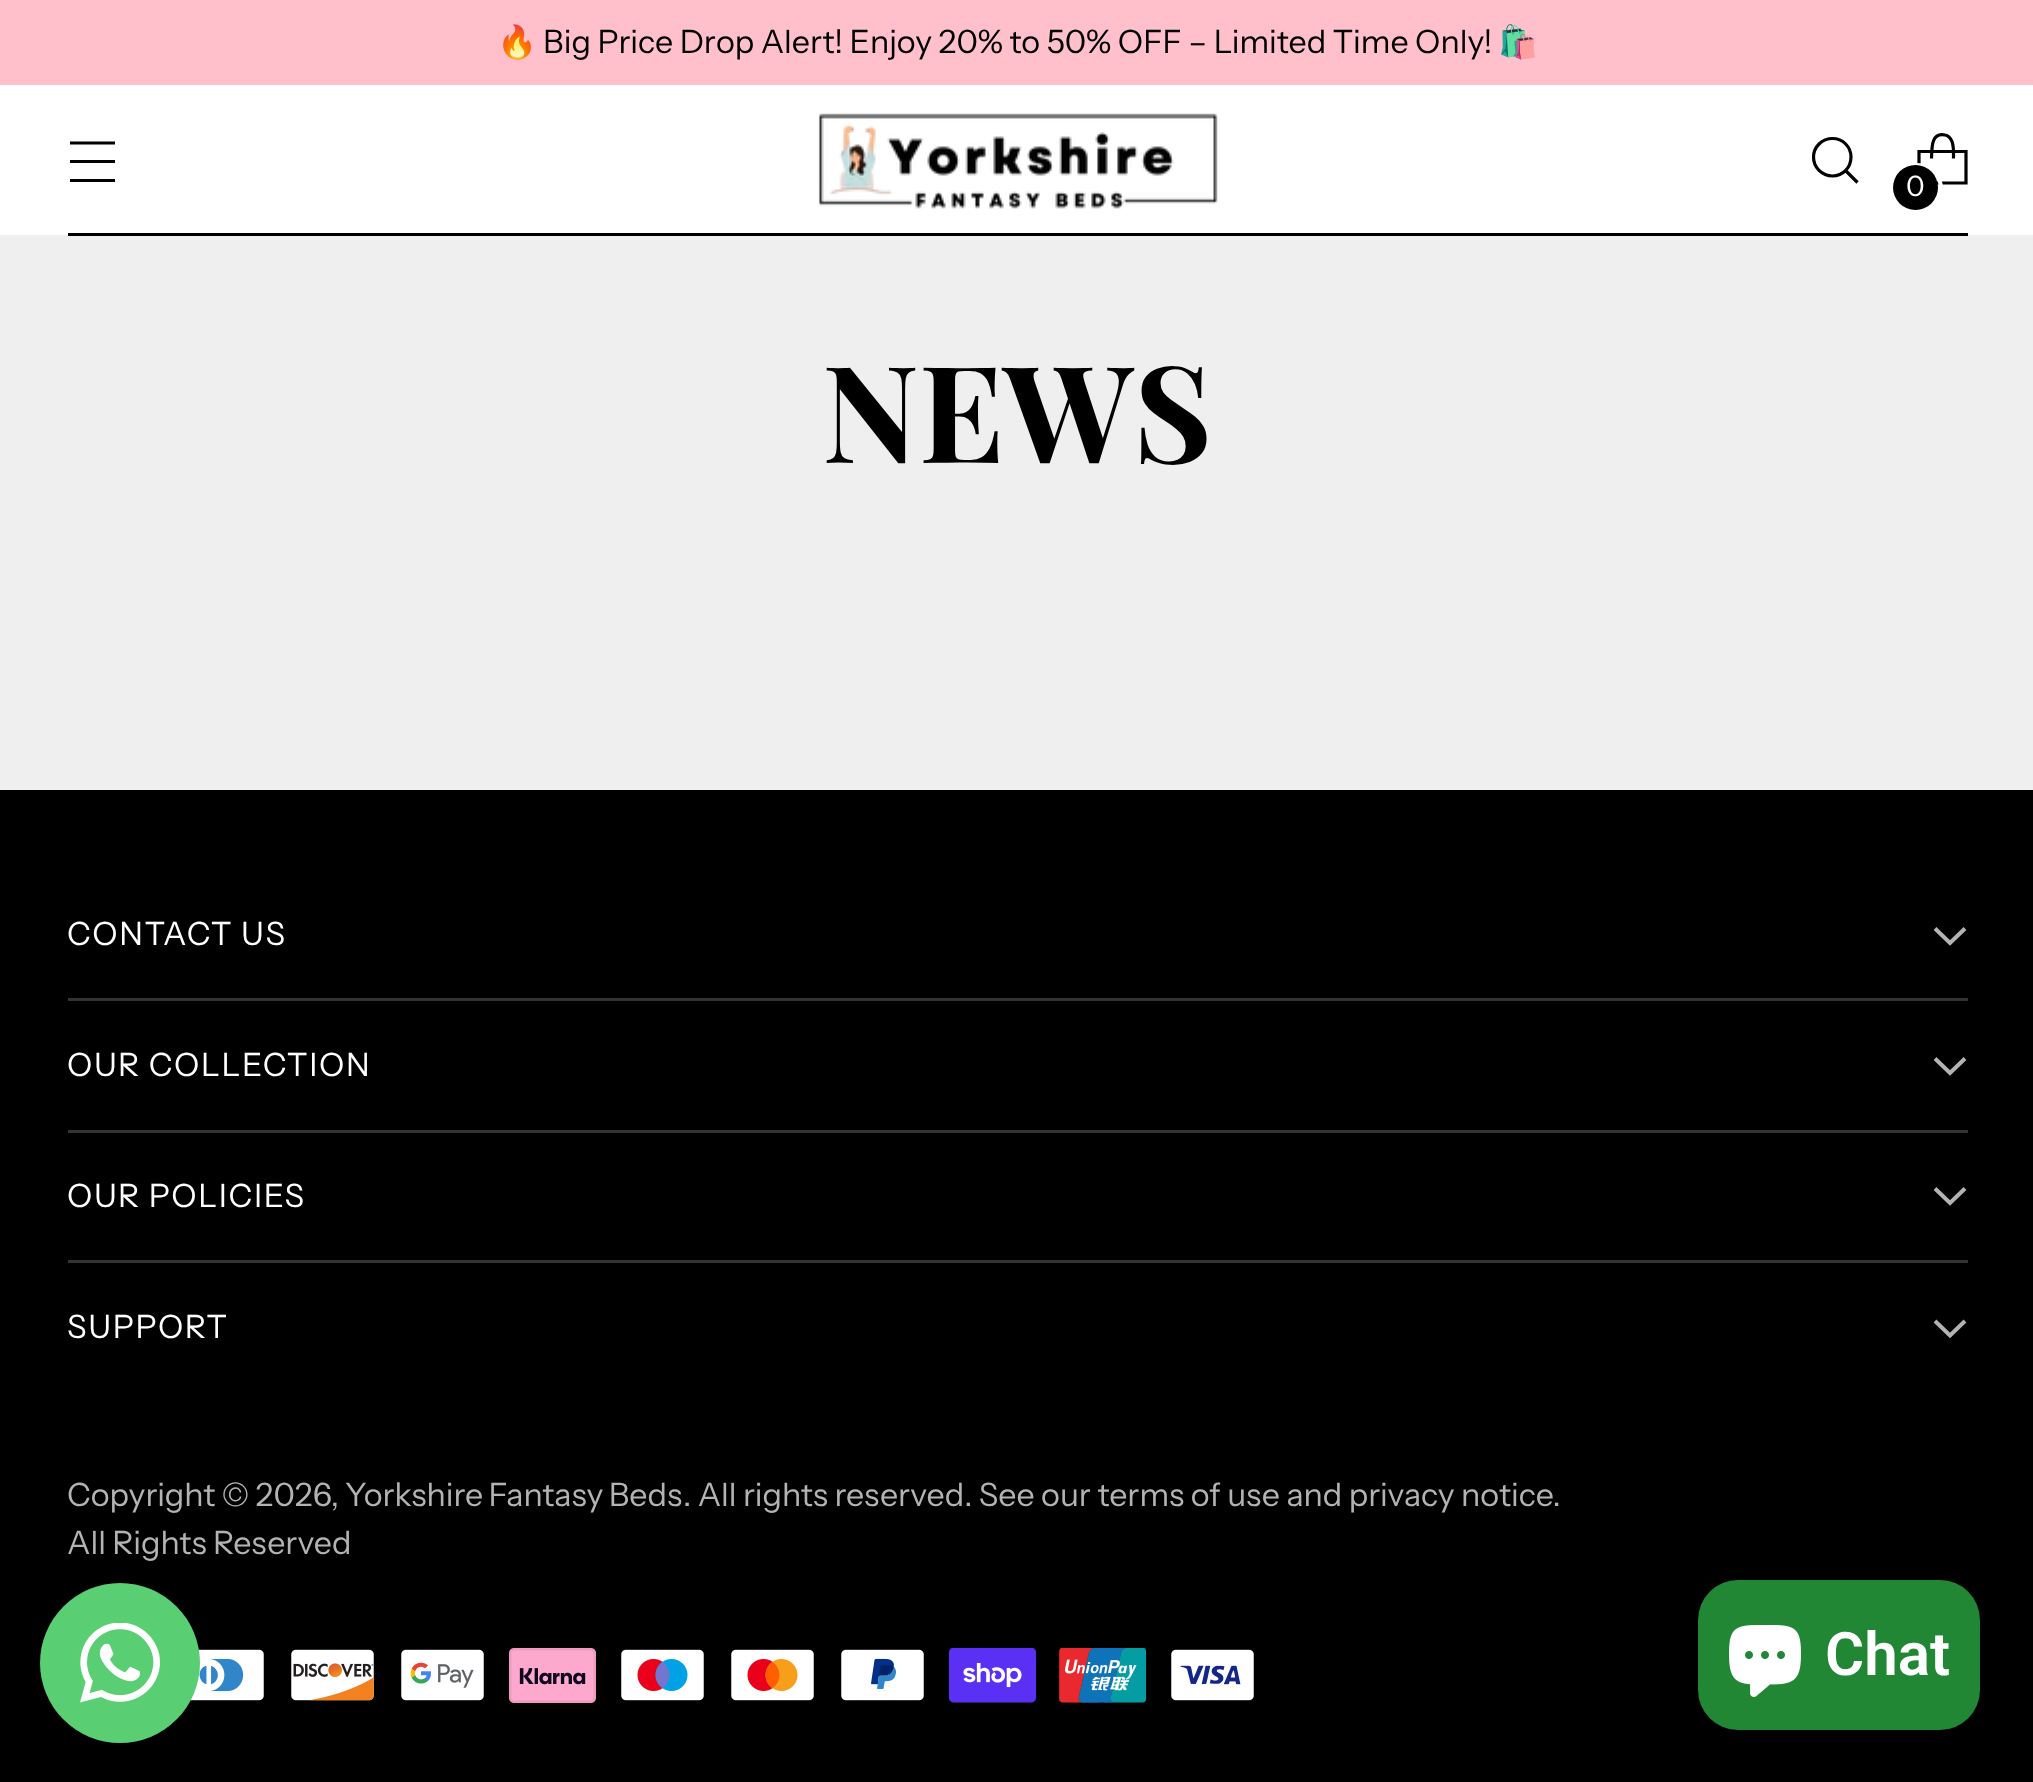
<?xml version="1.0" encoding="UTF-8"?>
<svg xmlns="http://www.w3.org/2000/svg" xmlns:xlink="http://www.w3.org/1999/xlink" width="2033" height="1782">
  <rect width="100%" height="100%" fill="#efefef" />
  <rect width="2033" height="85" fill="#ffc0cb" />
  <rect y="85" width="2033" height="150" fill="#ffffff" />
  <rect x="68" y="233" width="1900" height="3" fill="#000000" />
  <path d="M 70 161.5 h 45 m -45 -18.5 h 45 m -45 37.5 h 45" fill="none" stroke="#000000" stroke-width="3.2" />
  <image x="818" y="113" width="400" height="97" xlink:href="image1.png" />
  <path d="M 1832.5 176 c 10.5 0 18.5 -8.5 18.5 -19 c 0 -10 -8 -18.5 -18.5 -18.5 c -10.5 0 -19 8.5 -19 18.5 c 0 10.5 8.5 19 19 19 z" fill="none" stroke="#000000" stroke-width="3.2" stroke-linecap="round" />
  <path d="M 1846 171 l 11.5 11.5" fill="none" stroke="#000000" stroke-width="3.2" />
  <path d="M 1953.5 158.5 c 0 -5.5 0.5 -11.5 -1.5 -17 c -1.5 -3.5 -3.5 -6 -7 -6.5 c -14.5 -3 -13 14.5 -13.5 23.5" fill="none" stroke="#000000" stroke-width="3.2" stroke-linejoin="bevel" />
  <path d="M 1966 183 v -31.5 h -47 v 31.5 z" fill="none" stroke="#000000" stroke-width="3.2" />
  <rect x="1892" y="165" width="49" height="48" rx="24" fill="none" stroke="#ffffff" stroke-width="4" />
  <circle cx="1915.5" cy="187.5" r="22.5" fill="#000000" />
  <rect y="790" width="2033" height="992" fill="#000000" />
  <rect x="68" y="998" width="1900" height="3" fill="#333333" />
  <path d="M 1935 928.5 l 15 14.5 l 15 -14.5" fill="none" stroke="#b3b3b3" stroke-width="4" />
  <rect x="68" y="1130" width="1900" height="3" fill="#333333" />
  <path d="M 1935 1058.5 l 15 14.5 l 15 -14.5" fill="none" stroke="#b3b3b3" stroke-width="4" />
  <rect x="68" y="1260" width="1900" height="3" fill="#333333" />
  <path d="M 1935 1188.5 l 15 14.5 l 15 -14.5" fill="none" stroke="#b3b3b3" stroke-width="4" />
  <path d="M 1935 1321 l 15 14.5 l 15 -14.5" fill="none" stroke="#b3b3b3" stroke-width="4" />
  <image x="190" y="1649" width="74" height="52" xlink:href="image2.png" />
  <image x="291" y="1649" width="83" height="52" xlink:href="image3.png" />
  <image x="401" y="1649" width="83" height="52" xlink:href="image4.png" />
  <image x="509" y="1648" width="87" height="55" xlink:href="image5.png" />
  <image x="621" y="1649" width="83" height="52" xlink:href="image6.png" />
  <image x="731" y="1649" width="83" height="52" xlink:href="image7.png" />
  <image x="841" y="1649" width="83" height="52" xlink:href="image8.png" />
  <image x="948" y="1648" width="89" height="55" xlink:href="image9.png" />
  <image x="1059" y="1648" width="88" height="55" xlink:href="image10.png" />
  <image x="1171" y="1649" width="83" height="52" xlink:href="image11.png" />
  <circle cx="120" cy="1663" r="80" fill="#59ce72" />
  <image x="80" y="1623" width="80" height="80" xlink:href="image12.png" />
  <rect x="1698" y="1580" width="282" height="150" rx="40" fill="#218735" />
  <image x="1729" y="1625" width="72" height="72" xlink:href="image13.png" />
  <text x="497" y="53" style="font-family: Noto Color Emoji; font-size: 32.2px; fill: #000000">🔥</text>
  <text x="543" y="53" style="font-family: Instrument Sans; font-size: 32.2px; fill: #000000">Big Price Drop Alert! Enjoy 20% to 50% OFF – Limited Time Only!</text>
  <text x="1498" y="53" style="font-family: Noto Color Emoji; font-size: 32.2px; fill: #000000">🛍️</text>
  <text x="1906" y="196" style="font-family: Instrument Sans; font-size: 28px; fill: #ffffff">0</text>
  <text x="822" y="463" style="font-family: Playfair Display; font-size: 134.5px; font-weight: bold; fill: #000000">NEWS</text>
  <text x="67" y="945" style="font-family: Instrument Sans; font-size: 32.2px; letter-spacing: 1.6px; fill: #ffffff">CONTACT US</text>
  <text x="67" y="1076" style="font-family: Instrument Sans; font-size: 32.2px; letter-spacing: 1.6px; fill: #ffffff">OUR COLLECTION</text>
  <text x="67" y="1207" style="font-family: Instrument Sans; font-size: 32.2px; letter-spacing: 1.6px; fill: #ffffff">OUR POLICIES</text>
  <text x="67" y="1338" style="font-family: Instrument Sans; font-size: 32.2px; letter-spacing: 1.6px; fill: #ffffff">SUPPORT</text>
  <text x="67" y="1506" style="font-family: Instrument Sans; font-size: 32.2px; fill: #b3b3b3">Copyright © 2026,</text>
  <text x="345" y="1506" word-spacing="-1" style="font-family: Instrument Sans; font-size: 32.2px; fill: #b3b3b3">Yorkshire Fantasy Beds</text>
  <text x="683" y="1506" style="font-family: Instrument Sans; font-size: 32.2px; fill: #b3b3b3">. All rights reserved. See our terms of use and privacy notice.</text>
  <text x="67" y="1554" style="font-family: Instrument Sans; font-size: 32.2px; fill: #b3b3b3">All Rights Reserved</text>
  <text x="1825" y="1675" style="font-family: Roboto; font-size: 60px; font-weight: 600; fill: #ffffff">Chat</text>
</svg>
